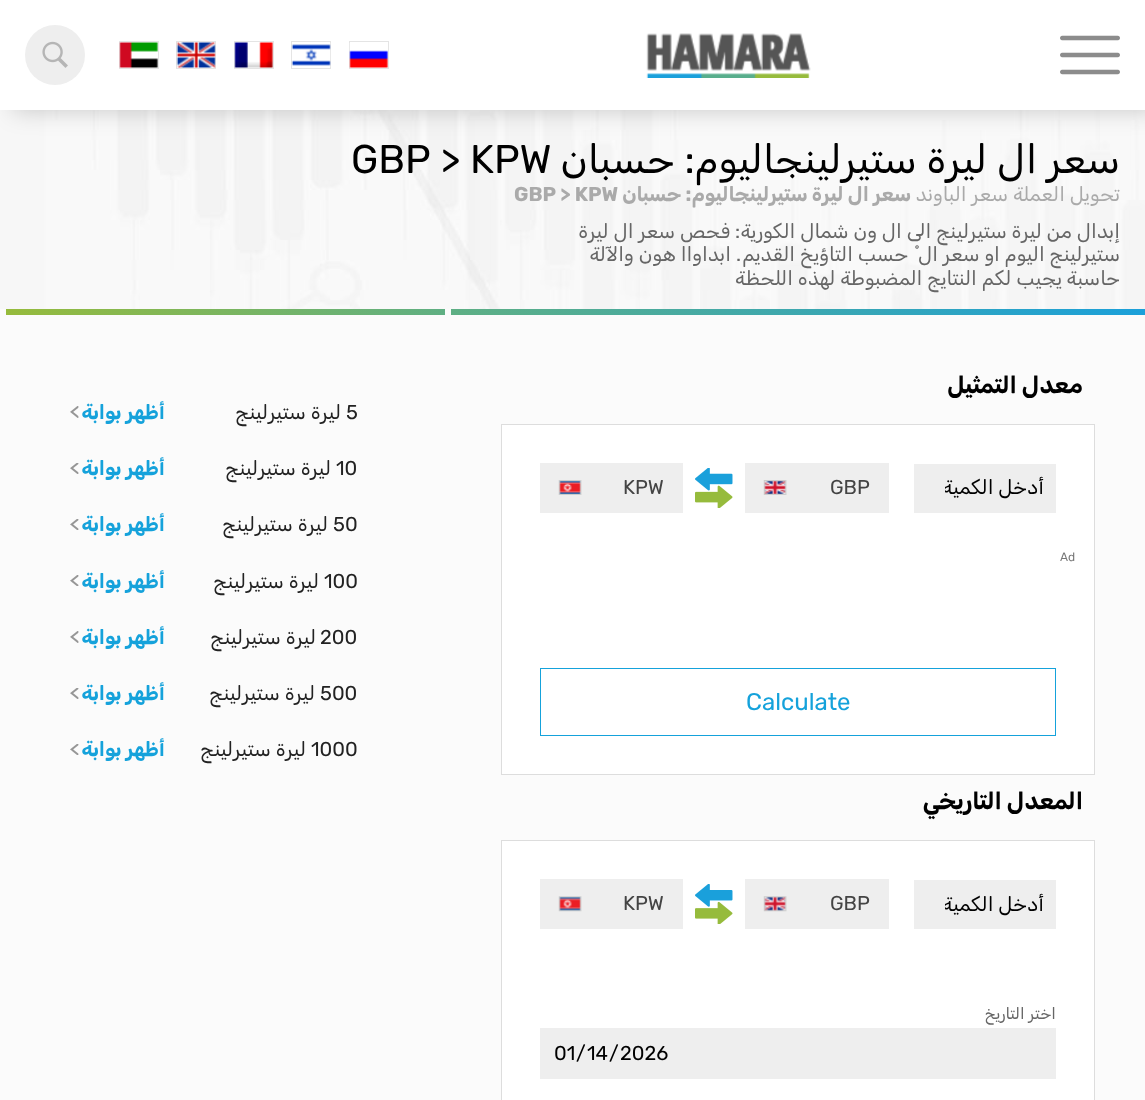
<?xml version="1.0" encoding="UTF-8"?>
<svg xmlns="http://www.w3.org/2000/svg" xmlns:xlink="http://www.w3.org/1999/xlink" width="1145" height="1100">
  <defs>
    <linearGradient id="g1" gradientUnits="userSpaceOnUse" x1="1145" y1="312" x2="451" y2="312"><stop offset="0" stop-color="#1ba0da" /><stop offset="1" stop-color="#5eaf84" /></linearGradient>
    <linearGradient id="g2" gradientUnits="userSpaceOnUse" x1="445" y1="312" x2="6.2" y2="312"><stop offset="0" stop-color="#5faf83" /><stop offset="1" stop-color="#96bb3c" /></linearGradient>
    <clipPath id="clip1"><rect x="945" y="476" width="99" height="24" /></clipPath>
    <clipPath id="clip2"><rect x="945" y="893" width="99" height="23" /></clipPath>
  </defs>
  <rect width="100%" height="100%" fill="#ffffff" />
  <image x="0" y="110" width="1145" height="122" xlink:href="image9.png" />
  <rect x="13" width="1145" height="110" fill="#000000" fill-opacity="0.2" filter="blur(12.5px)" />
  <rect width="1145" height="110" fill="#ffffff" />
  <image x="1060" y="35" width="60" height="40" xlink:href="image1.png" />
  <image x="646" y="33" width="165" height="45" xlink:href="image2.png" />
  <rect x="349.5" y="41.5" width="39" height="27" fill="none" stroke="#e4e4e4" />
  <image x="349" y="43" width="39" height="25" xlink:href="image3.png" />
  <rect x="291.5" y="41.5" width="39" height="27" fill="none" stroke="#e4e4e4" />
  <image x="291" y="43" width="40" height="24" xlink:href="image4.png" />
  <rect x="234.5" y="41.5" width="39" height="27" fill="none" stroke="#e4e4e4" />
  <image x="234" y="42" width="39" height="26" xlink:href="image5.png" />
  <rect x="176.5" y="41.5" width="39" height="27" fill="none" stroke="#e4e4e4" />
  <image x="176" y="42" width="40" height="26" xlink:href="image6.png" />
  <rect x="119.5" y="41.5" width="39" height="27" fill="none" stroke="#e4e4e4" />
  <image x="119" y="42" width="39" height="26" xlink:href="image7.png" />
  <circle cx="55" cy="55" r="30" fill="#eeeeee" />
  <image x="42" y="41" width="26" height="27" xlink:href="image8.png" />
  <image x="0" y="232" width="1145" height="77" xlink:href="image10.png" />
  <rect y="309" width="1145" height="791" fill="#fbfbfb" />
  <rect x="451" y="309" width="694" height="6" fill="url(#g1)" />
  <rect x="501.5" y="424.5" width="593" height="350" fill="#ffffff" stroke="#dddddd" />
  <rect x="914" y="464" width="142" height="49" fill="#eeeeee" />
  <rect x="745" y="463" width="144" height="50" fill="#eeeeee" />
  <image x="763" y="480" width="24" height="15" xlink:href="image11.png" />
  <image x="695" y="468" width="38" height="40" xlink:href="image12.png" />
  <rect x="540" y="463" width="143" height="50" fill="#eeeeee" />
  <image x="558" y="480" width="24" height="15" xlink:href="image13.png" />
  <rect x="540.5" y="668.5" width="515" height="67" fill="none" stroke="#15a2db" />
  <rect x="501.5" y="840.5" width="593" height="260" fill="#ffffff" stroke="#dddddd" />
  <rect x="914" y="880" width="142" height="49" fill="#eeeeee" />
  <rect x="745" y="879" width="144" height="50" fill="#eeeeee" />
  <image x="763" y="896" width="24" height="16" xlink:href="image14.png" />
  <image x="695" y="884" width="38" height="40" xlink:href="image15.png" />
  <rect x="540" y="879" width="143" height="50" fill="#eeeeee" />
  <image x="558" y="896" width="24" height="16" xlink:href="image16.png" />
  <rect x="540" y="1028" width="516" height="51" fill="#eeeeee" />
  <rect x="6" y="309" width="439" height="6" fill="url(#g2)" />
  <image x="70" y="406" width="9" height="12" xlink:href="image17.png" />
  <image x="70" y="463" width="9" height="11" xlink:href="image18.png" />
  <image x="70" y="519" width="9" height="11" xlink:href="image19.png" />
  <image x="70" y="575" width="9" height="11" xlink:href="image20.png" />
  <image x="70" y="631" width="9" height="12" xlink:href="image17.png" />
  <image x="70" y="688" width="9" height="11" xlink:href="image18.png" />
  <image x="70" y="744" width="9" height="11" xlink:href="image19.png" />
  <text x="1120" y="173" style="font-family: Rubik; font-size: 40px; direction: rtl; fill: #000000">سعر ال ليرة ستيرلينجاليوم: حسبان</text>
  <text x="351" y="173" style="font-family: Rubik; font-size: 40px; fill: #000000">GBP &gt; KPW</text>
  <text x="1120" y="201" style="font-family: Rubik; font-size: 20px; direction: rtl; fill: #aaaaaa">تحويل العملة</text>
  <text x="1008" y="201" style="font-family: Rubik; font-size: 20px; direction: rtl; fill: #aaaaaa">سعر الباوند</text>
  <text x="911" y="201" style="font-family: Rubik; font-size: 20px; font-weight: bold; direction: rtl; fill: #aaaaaa">سعر ال ليرة ستيرلينجاليوم: حسبان</text>
  <text x="514" y="201" style="font-family: Rubik; font-size: 20px; font-weight: bold; fill: #aaaaaa">GBP &gt; KPW</text>
  <text x="1120" y="238" style="font-family: Rubik; font-size: 20px; direction: rtl; fill: #666666">إبدال من ليرة ستيرلينج الى ال ون شمال الكورية</text>
  <text x="740" y="238" style="font-family: Rubik; font-size: 20px; font-weight: 300; direction: rtl; fill: #666666">:</text>
  <text x="730" y="238" style="font-family: Rubik; font-size: 20px; direction: rtl; fill: #666666">فحص سعر ال ليرة</text>
  <text x="1120" y="261" style="font-family: Rubik; font-size: 20px; direction: rtl; fill: #666666">ستيرلينج اليوم او سعر ال ْ حسب التاؤيخ القديم</text>
  <text x="741" y="261" style="font-family: Rubik; font-size: 20px; font-weight: 300; direction: rtl; fill: #666666">.</text>
  <text x="731" y="261" style="font-family: Rubik; font-size: 20px; direction: rtl; fill: #666666">ابداواا هون والآلة</text>
  <text x="1120" y="285" style="font-family: Rubik; font-size: 20px; direction: rtl; fill: #666666">حاسبة</text>
  <text x="1062" y="285" style="font-family: Rubik; font-size: 20px; direction: rtl; fill: #666666">يجيب لكم النتايج المضبوطة لهذه اللحظة</text>
  <text x="1083" y="393" style="font-family: Rubik; font-size: 23.5px; font-weight: bold; direction: rtl; fill: #000000">معدل التمثيل</text>
  <g clip-path="url(#clip1)">
    <text x="1044" y="494" style="font-family: Rubik; font-size: 20px; direction: rtl; fill: #000000">أدخل الكمية</text>
  </g>
  <text x="830" y="494" style="font-family: Rubik; font-size: 20px; font-weight: 300; fill: #444444">GBP</text>
  <text x="623" y="494" style="font-family: Rubik; font-size: 20px; font-weight: 300; fill: #444444">KPW</text>
  <text x="1060" y="561" style="font-family: Rubik; font-size: 12px; font-weight: 300; fill: #777777">Ad</text>
  <text x="746" y="710" style="font-family: Rubik; font-size: 24px; font-weight: 300; fill: #15a2db">Calculate</text>
  <text x="1083" y="809" style="font-family: Rubik; font-size: 23.5px; font-weight: bold; direction: rtl; fill: #000000">المعدل التاريخي</text>
  <g clip-path="url(#clip2)">
    <text x="1044" y="911" style="font-family: Rubik; font-size: 20px; direction: rtl; fill: #000000">أدخل الكمية</text>
  </g>
  <text x="830" y="910" style="font-family: Rubik; font-size: 20px; font-weight: 300; fill: #444444">GBP</text>
  <text x="623" y="910" style="font-family: Rubik; font-size: 20px; font-weight: 300; fill: #444444">KPW</text>
  <text x="1056" y="1019" style="font-family: Rubik; font-size: 16px; direction: rtl; fill: #666666">اختر التاريخ</text>
  <text x="620" y="1060" style="font-family: Rubik; font-size: 20px; font-weight: 300; fill: #000000">2026</text>
  <text x="609" y="1060" style="font-family: Rubik; font-size: 20px; font-weight: 300; fill: #000000">/</text>
  <text x="587" y="1060" style="font-family: Rubik; font-size: 20px; font-weight: 300; fill: #000000">14</text>
  <text x="576" y="1060" style="font-family: Rubik; font-size: 20px; font-weight: 300; fill: #000000">/</text>
  <text x="554" y="1060" style="font-family: Rubik; font-size: 20px; font-weight: 300; fill: #000000">01</text>
  <text x="346" y="419" style="font-family: Rubik; font-size: 20px; fill: #222222">5</text>
  <text x="341" y="419" style="font-family: Rubik; font-size: 20px; direction: rtl; fill: #222222">ليرة ستيرلينج</text>
  <text x="165" y="419" style="font-family: Rubik; font-size: 20px; font-weight: bold; direction: rtl; fill: #15a2db">أظهر بوابة</text>
  <text x="336" y="475" style="font-family: Rubik; font-size: 20px; fill: #222222">10</text>
  <text x="331" y="475" style="font-family: Rubik; font-size: 20px; direction: rtl; fill: #222222">ليرة ستيرلينج</text>
  <text x="165" y="475" style="font-family: Rubik; font-size: 20px; font-weight: bold; direction: rtl; fill: #15a2db">أظهر بوابة</text>
  <text x="333" y="531" style="font-family: Rubik; font-size: 20px; fill: #222222">50</text>
  <text x="328" y="531" style="font-family: Rubik; font-size: 20px; direction: rtl; fill: #222222">ليرة ستيرلينج</text>
  <text x="165" y="531" style="font-family: Rubik; font-size: 20px; font-weight: bold; direction: rtl; fill: #15a2db">أظهر بوابة</text>
  <text x="324" y="588" style="font-family: Rubik; font-size: 20px; fill: #222222">100</text>
  <text x="319" y="588" style="font-family: Rubik; font-size: 20px; direction: rtl; fill: #222222">ليرة ستيرلينج</text>
  <text x="165" y="588" style="font-family: Rubik; font-size: 20px; font-weight: bold; direction: rtl; fill: #15a2db">أظهر بوابة</text>
  <text x="320" y="644" style="font-family: Rubik; font-size: 20px; fill: #222222">200</text>
  <text x="316" y="644" style="font-family: Rubik; font-size: 20px; direction: rtl; fill: #222222">ليرة ستيرلينج</text>
  <text x="165" y="644" style="font-family: Rubik; font-size: 20px; font-weight: bold; direction: rtl; fill: #15a2db">أظهر بوابة</text>
  <text x="320" y="700" style="font-family: Rubik; font-size: 20px; fill: #222222">500</text>
  <text x="315" y="700" style="font-family: Rubik; font-size: 20px; direction: rtl; fill: #222222">ليرة ستيرلينج</text>
  <text x="165" y="700" style="font-family: Rubik; font-size: 20px; font-weight: bold; direction: rtl; fill: #15a2db">أظهر بوابة</text>
  <text x="311" y="756" style="font-family: Rubik; font-size: 20px; fill: #222222">1000</text>
  <text x="306" y="756" style="font-family: Rubik; font-size: 20px; direction: rtl; fill: #222222">ليرة ستيرلينج</text>
  <text x="165" y="756" style="font-family: Rubik; font-size: 20px; font-weight: bold; direction: rtl; fill: #15a2db">أظهر بوابة</text>
</svg>
